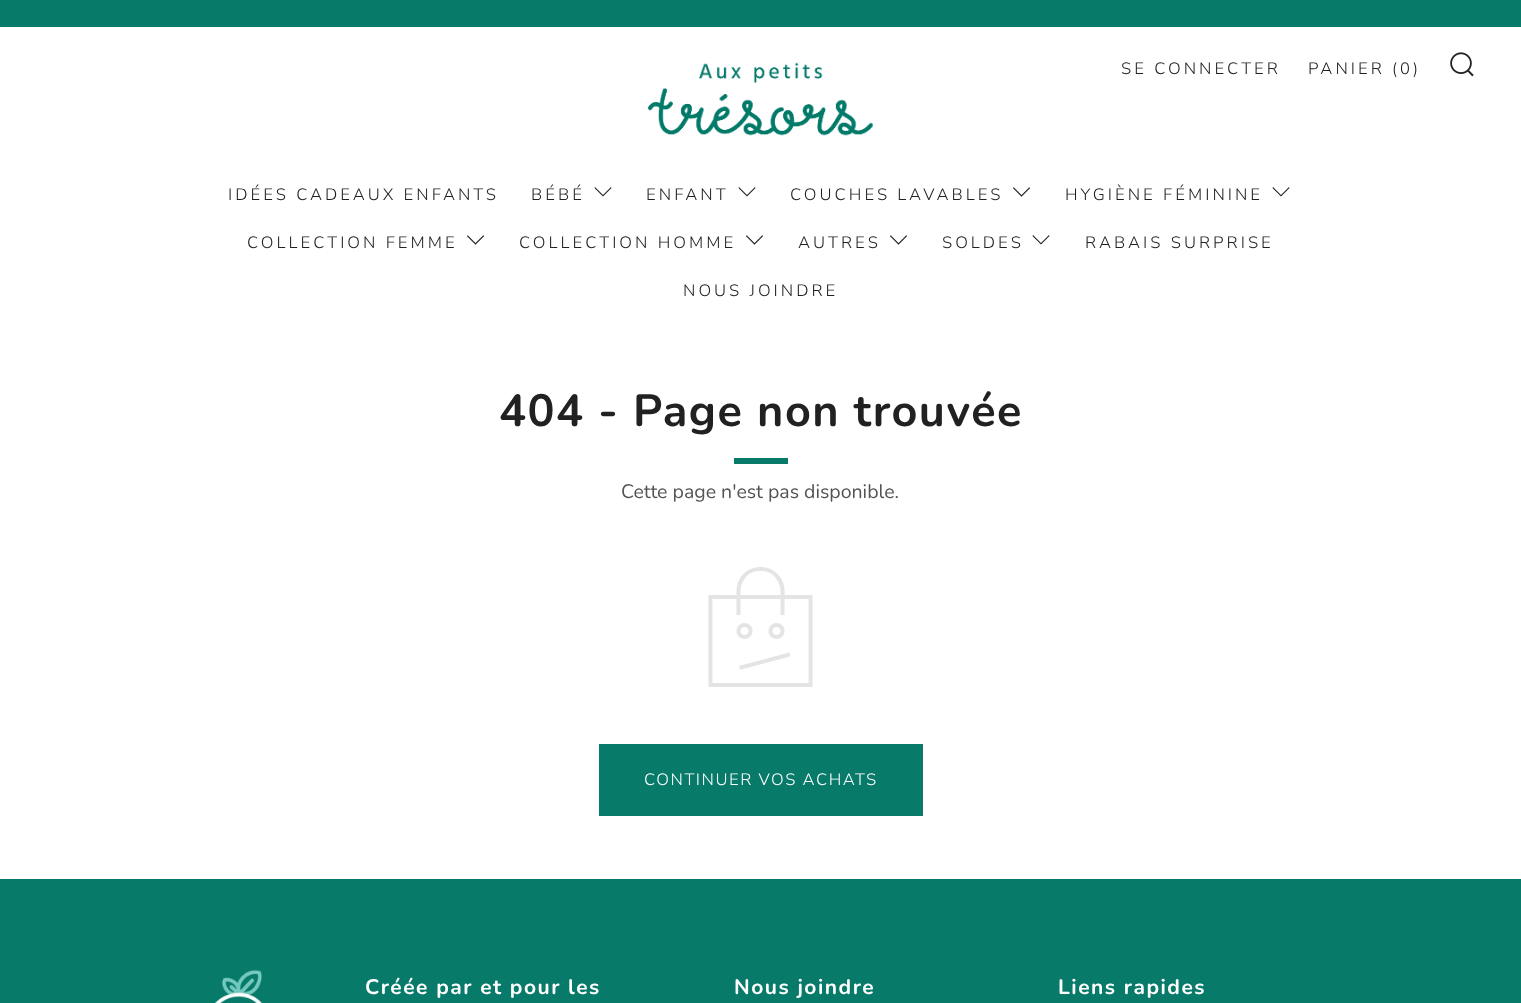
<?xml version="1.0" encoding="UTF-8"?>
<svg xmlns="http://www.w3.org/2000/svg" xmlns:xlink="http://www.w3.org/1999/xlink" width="1521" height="1003">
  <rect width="100%" height="100%" fill="#ffffff" />
  <rect width="1521" height="27" fill="#077a69" />
  <image x="1450" y="52" width="24" height="25" xlink:href="image1.png" />
  <path d="M 595 187 l -0.5 1 l 8.5 8.5 l 8.5 -8.5 l -0.5 -1 l -8 8 z" fill="#212121" />
  <path d="M 739 187 l -0.5 1 l 8.5 8.5 l 8.5 -8.5 l -0.5 -1 l -8 8 z" fill="#212121" />
  <image x="1013" y="187" width="17" height="10" xlink:href="image2.png" />
  <path d="M 1273 187 l -0.5 1 l 8.5 8.5 l 8.5 -8.5 l -0.5 -1 l -8 8 z" fill="#212121" />
  <image x="467" y="235" width="17" height="10" xlink:href="image2.png" />
  <image x="746" y="235" width="17" height="10" xlink:href="image2.png" />
  <image x="890" y="235" width="17" height="10" xlink:href="image2.png" />
  <path d="M 1033 235 l -0.5 1 l 8.5 8.5 l 8.5 -8.5 l -0.5 -1 l -8 8 z" fill="#212121" />
  <image x="648" y="62" width="225" height="74" xlink:href="image3.png" />
  <rect x="734" y="458" width="54" height="6" fill="#077a69" />
  <image x="708" y="567" width="105" height="120" xlink:href="image4.png" />
  <rect x="599" y="744" width="324" height="72" fill="#077a69" />
  <rect y="879" width="1521" height="124" fill="#077a69" />
  <image x="215" y="970" width="47" height="33" xlink:href="image5.png" />
  <text x="1121" y="74" style="font-family: Nunito Sans; font-size: 16.5px; font-weight: 300; letter-spacing: 3px; fill: #212121">SE CONNECTER</text>
  <text x="1308" y="74" style="font-family: Nunito Sans; font-size: 16.5px; font-weight: 300; letter-spacing: 3px; fill: #212121">PANIER (0)</text>
  <text x="228" y="200" style="font-family: Nunito Sans; font-size: 16.5px; font-weight: 300; letter-spacing: 3px; fill: #212121">IDÉES CADEAUX ENFANTS</text>
  <text x="531" y="200" style="font-family: Nunito Sans; font-size: 16.5px; font-weight: 300; letter-spacing: 3px; fill: #212121">BÉBÉ</text>
  <text x="646" y="200" style="font-family: Nunito Sans; font-size: 16.5px; font-weight: 300; letter-spacing: 3px; fill: #212121">ENFANT</text>
  <text x="790" y="200" style="font-family: Nunito Sans; font-size: 16.5px; font-weight: 300; letter-spacing: 3px; fill: #212121">COUCHES LAVABLES</text>
  <text x="1065" y="200" style="font-family: Nunito Sans; font-size: 16.5px; font-weight: 300; letter-spacing: 3px; fill: #212121">HYGIÈNE FÉMININE</text>
  <text x="247" y="248" style="font-family: Nunito Sans; font-size: 16.5px; font-weight: 300; letter-spacing: 3px; fill: #212121">COLLECTION FEMME</text>
  <text x="519" y="248" style="font-family: Nunito Sans; font-size: 16.5px; font-weight: 300; letter-spacing: 3px; fill: #212121">COLLECTION HOMME</text>
  <text x="798" y="248" style="font-family: Nunito Sans; font-size: 16.5px; font-weight: 300; letter-spacing: 3px; fill: #212121">AUTRES</text>
  <text x="942" y="248" style="font-family: Nunito Sans; font-size: 16.5px; font-weight: 300; letter-spacing: 3px; fill: #212121">SOLDES</text>
  <text x="1085" y="248" style="font-family: Nunito Sans; font-size: 16.5px; font-weight: 300; letter-spacing: 3px; fill: #212121">RABAIS SURPRISE</text>
  <text x="683" y="296" style="font-family: Nunito Sans; font-size: 16.5px; font-weight: 300; letter-spacing: 3px; fill: #212121">NOUS JOINDRE</text>
  <text x="499" y="426" style="font-family: Nunito; font-size: 45px; font-weight: bold; letter-spacing: 1.5px; fill: #212121">404 - Page non trouvée</text>
  <text x="621" y="498" style="font-family: Nunito; font-size: 19.5px; fill: #535353">Cette page n'est pas disponible.</text>
  <text x="644" y="785" style="font-family: Nunito Sans; font-size: 16.5px; font-weight: 300; letter-spacing: 1.5px; fill: #ffffff">CONTINUER VOS ACHATS</text>
  <text x="365" y="994" style="font-family: Nunito; font-size: 21px; font-weight: bold; letter-spacing: 1.5px; fill: #ffffff">Créée par et pour les</text>
  <text x="734" y="994" style="font-family: Nunito; font-size: 21px; font-weight: bold; letter-spacing: 1.5px; fill: #ffffff">Nous joindre</text>
  <text x="1058" y="994" style="font-family: Nunito; font-size: 21px; font-weight: bold; letter-spacing: 1.5px; fill: #ffffff">Liens rapides</text>
</svg>
